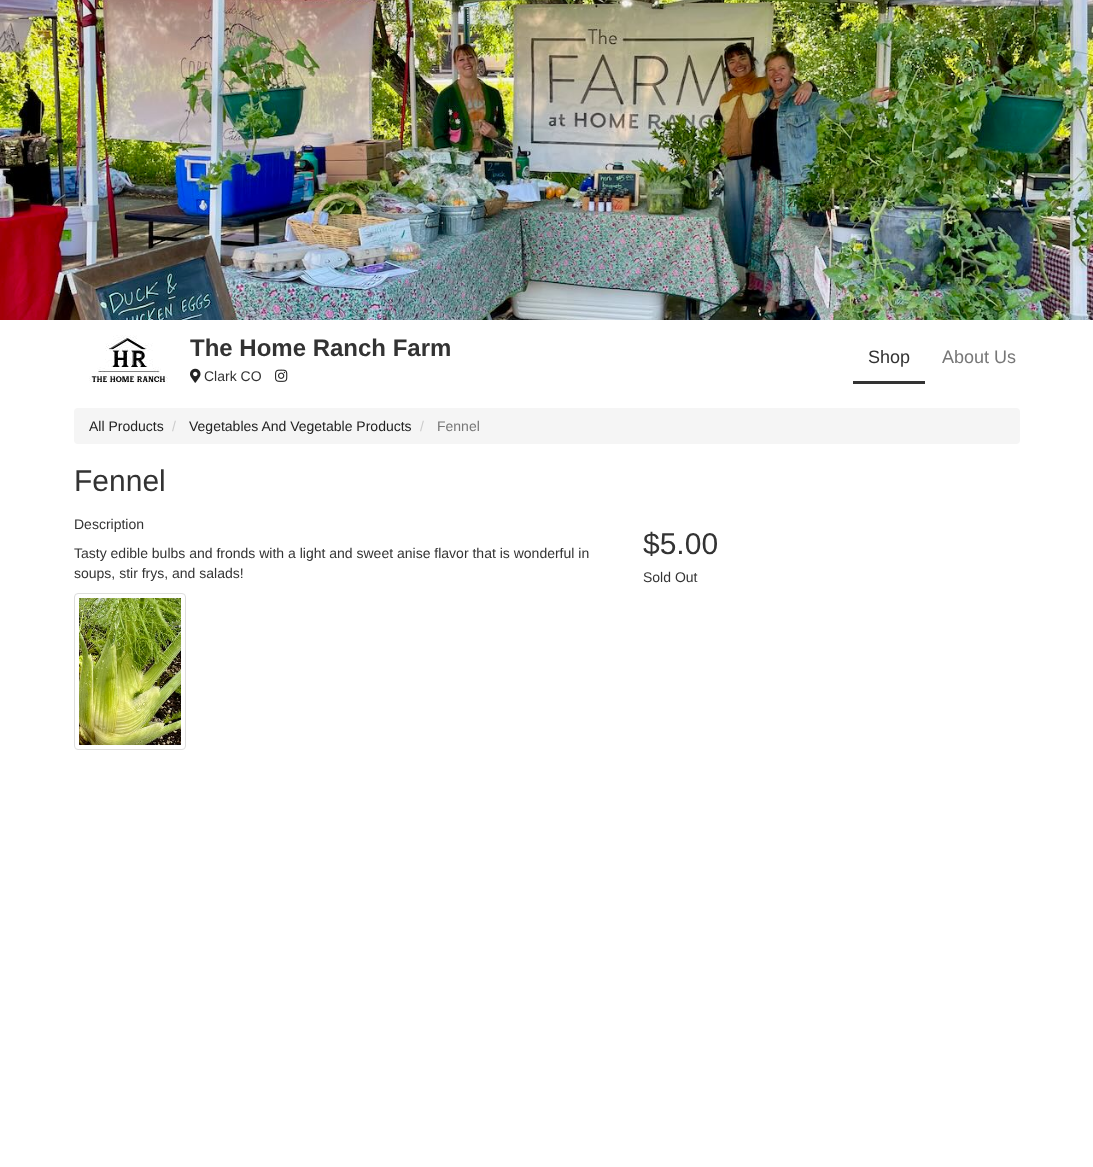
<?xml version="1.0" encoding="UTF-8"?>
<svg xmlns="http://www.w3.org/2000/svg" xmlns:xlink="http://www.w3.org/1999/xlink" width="1093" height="1167">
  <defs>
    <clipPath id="clip1"><rect x="190" y="335" width="503" height="61" /></clipPath>
  </defs>
  <rect width="100%" height="100%" fill="#ffffff" />
  <image x="0" y="0" width="1093" height="320" xlink:href="image1.png" />
  <image x="89" y="335" width="79" height="48" xlink:href="image2.png" />
  <image x="190" y="368" width="11" height="15" xlink:href="image3.png" />
  <image x="275" y="369" width="13" height="13" xlink:href="image4.png" />
  <rect x="853" y="381" width="72" height="3" fill="#333333" />
  <rect x="74" y="408" width="946" height="36" rx="4" fill="#f5f5f5" />
  <rect x="74.5" y="593.5" width="111" height="156" rx="3.5" fill="none" stroke="#dddddd" />
  <image x="79" y="598" width="102" height="147" xlink:href="image5.png" />
  <g clip-path="url(#clip1)">
    <text x="190" y="356" style="font-family: Liberation Sans; font-size: 24px; font-weight: bold; fill: #333333">The Home Ranch Farm</text>
  </g>
  <text x="204" y="381" style="font-family: Liberation Sans; font-size: 14px; fill: #333333">Clark CO</text>
  <text x="868" y="363" style="font-family: Liberation Sans; font-size: 18px; fill: #333333">Shop</text>
  <text x="942" y="363" style="font-family: Liberation Sans; font-size: 18px; fill: #777777">About Us</text>
  <text x="89" y="431" style="font-family: Liberation Sans; font-size: 14px; fill: #222222">All Products</text>
  <text x="172" y="431" style="font-family: Liberation Sans; font-size: 14px; fill: #cccccc">/</text>
  <text x="189" y="431" style="font-family: Liberation Sans; font-size: 14px; fill: #222222">Vegetables And Vegetable Products</text>
  <text x="420" y="431" style="font-family: Liberation Sans; font-size: 14px; fill: #cccccc">/</text>
  <text x="437" y="431" style="font-family: Liberation Sans; font-size: 14px; fill: #777777">Fennel</text>
  <text x="74" y="491" style="font-family: Liberation Sans; font-size: 30px; fill: #333333">Fennel</text>
  <text x="74" y="529" style="font-family: Liberation Sans; font-size: 14px; fill: #333333">Description</text>
  <text x="74" y="558" style="font-family: Liberation Sans; font-size: 14px; fill: #333333">Tasty edible bulbs and fronds with a light and sweet anise flavor that is wonderful in</text>
  <text x="74" y="578" style="font-family: Liberation Sans; font-size: 14px; fill: #333333">soups, stir frys, and salads!</text>
  <text x="643" y="554" style="font-family: Liberation Sans; font-size: 30px; fill: #333333">$5.00</text>
  <text x="643" y="582" style="font-family: Liberation Sans; font-size: 14px; fill: #333333">Sold Out</text>
</svg>
